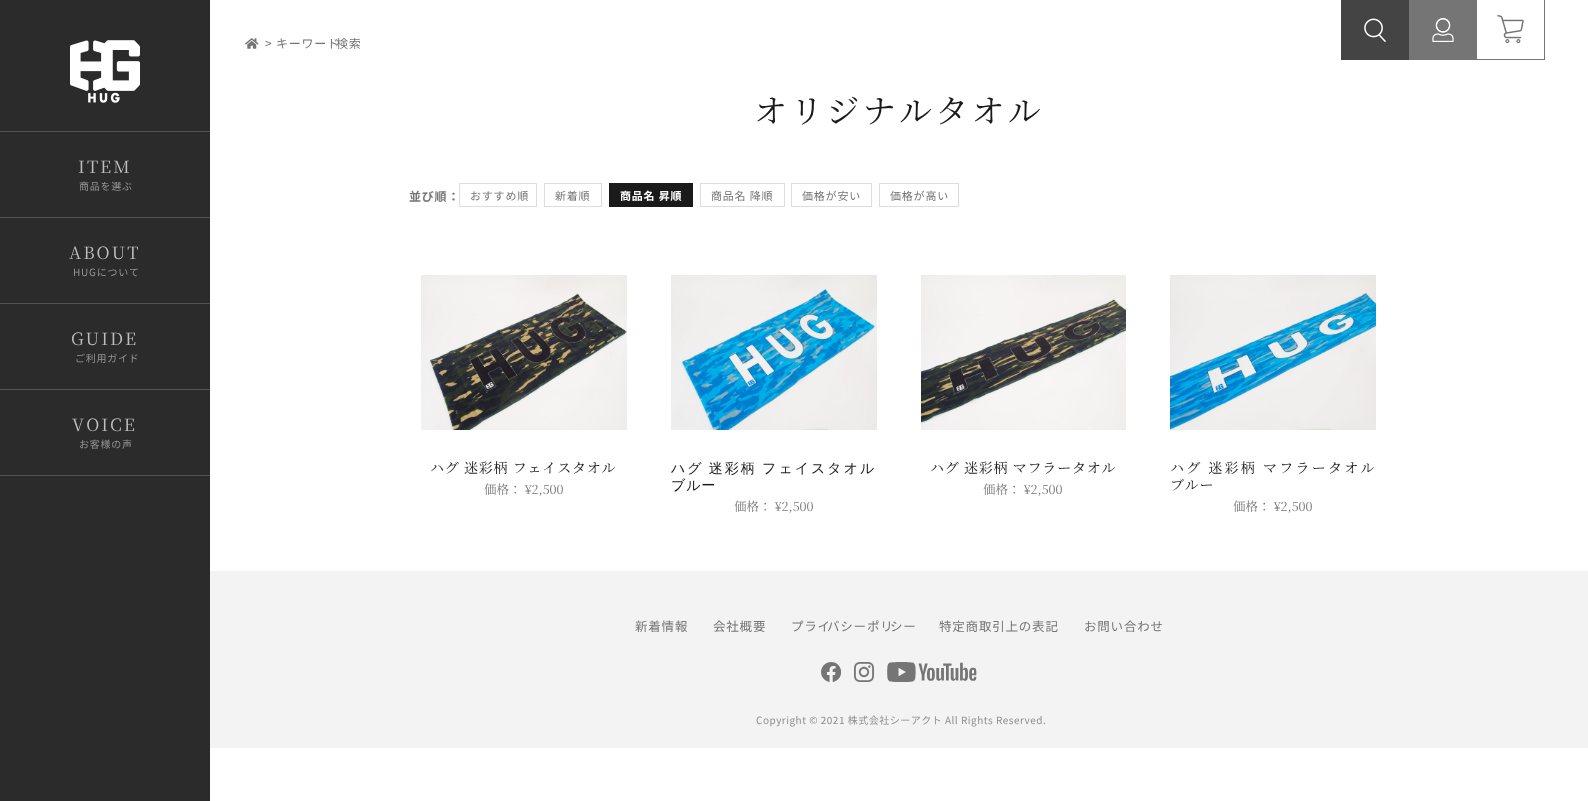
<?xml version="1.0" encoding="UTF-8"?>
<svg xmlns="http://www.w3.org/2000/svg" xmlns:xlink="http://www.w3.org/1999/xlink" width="1588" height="801">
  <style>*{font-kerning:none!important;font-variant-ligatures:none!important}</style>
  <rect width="100%" height="100%" fill="#ffffff" />
  <rect x="1341" width="68" height="60" fill="#444444" />
  <image x="1364" y="18" width="22" height="24" xlink:href="image1.png" />
  <rect x="1409" width="68" height="60" fill="#757575" />
  <image x="1432" y="18" width="22" height="24" xlink:href="image2.png" />
  <image x="1497" y="15" width="27" height="29" xlink:href="image3.png" />
  <rect x="1544" width="1" height="60" fill="#757575" />
  <rect x="1477" y="59" width="68" height="1" fill="#757575" />
  <rect width="210" height="801" fill="#2b2b2b" />
  <image x="70" y="40" width="70" height="63" xlink:href="image4.png" />
  <rect y="131" width="210" height="1" fill="#545454" />
  <rect y="217" width="210" height="1" fill="#545454" />
  <rect y="303" width="210" height="1" fill="#545454" />
  <rect y="389" width="210" height="1" fill="#545454" />
  <rect y="475" width="210" height="1" fill="#545454" />
  <image x="245" y="38" width="14" height="11" xlink:href="image5.png" />
  <rect x="459.5" y="183.5" width="77" height="23" fill="none" stroke="#dddddd" />
  <rect x="544.5" y="183.5" width="57" height="23" fill="none" stroke="#dddddd" />
  <rect x="609" y="183" width="84" height="24" fill="#1a1a1a" />
  <rect x="700.5" y="183.5" width="84" height="23" fill="none" stroke="#dddddd" />
  <rect x="791.5" y="183.5" width="80" height="23" fill="none" stroke="#dddddd" />
  <rect x="879.5" y="183.5" width="79" height="23" fill="none" stroke="#dddddd" />
  <image x="421" y="275" width="206" height="155" xlink:href="image6.png" />
  <image x="671" y="275" width="206" height="155" xlink:href="image7.png" />
  <image x="921" y="275" width="205" height="155" xlink:href="image8.png" />
  <image x="1170" y="275" width="206" height="155" xlink:href="image9.png" />
  <rect x="210" y="571" width="1378" height="177" fill="#f3f3f3" />
  <image x="821" y="662" width="20" height="20" xlink:href="image10.png" />
  <image x="854" y="662" width="20" height="20" xlink:href="image11.png" />
  <image x="887" y="662" width="90" height="20" xlink:href="image12.png" />
  <text x="78" y="173" style="font-family: Noto Serif JP; font-size: 17px; letter-spacing: 2px; fill: #bfbfbf">ITEM</text>
  <text x="79" y="190" style="font-family: Noto Sans JP; font-size: 10px; letter-spacing: 0.75px; fill: #959595">商品を選ぶ</text>
  <text x="69" y="259" style="font-family: Noto Serif JP; font-size: 17px; letter-spacing: 2px; fill: #bfbfbf">ABOUT</text>
  <text x="73" y="276" style="font-family: Noto Sans JP; font-size: 10px; letter-spacing: 0.75px; fill: #959595">HUGについて</text>
  <text x="71" y="345" style="font-family: Noto Serif JP; font-size: 17px; letter-spacing: 2px; fill: #bfbfbf">GUIDE</text>
  <text x="75" y="362" style="font-family: Noto Sans JP; font-size: 10px; letter-spacing: 0.75px; fill: #959595">ご利用ガイド</text>
  <text x="72" y="431" style="font-family: Noto Serif JP; font-size: 17px; letter-spacing: 2px; fill: #bfbfbf">VOICE</text>
  <text x="79" y="448" style="font-family: Noto Sans JP; font-size: 10px; letter-spacing: 0.75px; fill: #959595">お客様の声</text>
  <text x="265" y="48" style="font-family: Noto Sans JP; font-size: 12px; letter-spacing: 0.8px; fill: #757575">&gt; キーワード</text>
  <text x="336" y="48" style="font-family: Noto Sans JP; font-size: 12px; letter-spacing: 0.8px; fill: #757575">検索</text>
  <text x="754" y="123" style="font-family: Noto Serif JP; font-size: 33px; letter-spacing: 3.25px; fill: #1a1a1a">オリジナルタオル</text>
  <text x="409" y="201" style="font-family: Noto Sans JP; font-size: 12px; font-weight: bold; letter-spacing: 0.8px; fill: #757575">並び順：</text>
  <text x="470" y="200" style="font-family: Noto Sans JP; font-size: 11px; letter-spacing: 0.8px; fill: #757575">おすすめ順</text>
  <text x="555" y="200" style="font-family: Noto Sans JP; font-size: 11px; letter-spacing: 0.8px; fill: #757575">新着順</text>
  <text x="620" y="200" style="font-family: Noto Sans JP; font-size: 11px; font-weight: bold; letter-spacing: 0.8px; fill: #ffffff">商品名 昇順</text>
  <text x="711" y="200" style="font-family: Noto Sans JP; font-size: 11px; letter-spacing: 0.8px; fill: #757575">商品名 降順</text>
  <text x="802" y="200" style="font-family: Noto Sans JP; font-size: 11px; letter-spacing: 0.8px; fill: #757575">価格が安い</text>
  <text x="890" y="200" style="font-family: Noto Sans JP; font-size: 11px; letter-spacing: 0.8px; fill: #757575">価格が高い</text>
  <text x="430" y="473" style="font-family: Noto Serif JP; font-size: 14px; letter-spacing: 0.8px; fill: #1a1a1a">ハグ 迷彩柄 フェイスタオル</text>
  <text x="484" y="494" style="font-family: Noto Serif JP; font-size: 12.5px; fill: #757575">価格： ¥2,500</text>
  <text x="671" y="473" word-spacing="-1" style="font-family: WenQuanYi Zen Hei; font-size: 14px; font-weight: 500; letter-spacing: 2px; fill: #1a1a1a">ハグ 迷彩柄 フェイスタオル</text>
  <text x="671" y="490" style="font-family: WenQuanYi Zen Hei; font-size: 14px; font-weight: 500; letter-spacing: 0.8px; fill: #1a1a1a">ブルー</text>
  <text x="734" y="511" style="font-family: Noto Serif JP; font-size: 12.5px; fill: #757575">価格： ¥2,500</text>
  <text x="930" y="473" style="font-family: Noto Serif JP; font-size: 14px; letter-spacing: 0.8px; fill: #1a1a1a">ハグ 迷彩柄 マフラータオル</text>
  <text x="983" y="494" style="font-family: Noto Serif JP; font-size: 12.5px; fill: #757575">価格： ¥2,500</text>
  <text x="1170" y="473" style="font-family: Noto Serif JP; font-size: 14px; letter-spacing: 2.25px; fill: #1a1a1a">ハグ 迷彩柄 マフラータオル</text>
  <text x="1170" y="490" style="font-family: Noto Serif JP; font-size: 14px; letter-spacing: 0.8px; fill: #1a1a1a">ブルー</text>
  <text x="1233" y="511" style="font-family: Noto Serif JP; font-size: 12.5px; fill: #757575">価格： ¥2,500</text>
  <text x="635" y="631" style="font-family: Noto Sans JP; font-size: 12.5px; letter-spacing: 0.8px; fill: #757575">新着情報</text>
  <text x="713" y="631" style="font-family: Noto Sans JP; font-size: 12.5px; letter-spacing: 0.8px; fill: #757575">会社概要</text>
  <text x="791" y="631" style="font-family: Noto Sans JP; font-size: 12.5px; letter-spacing: 0.8px; fill: #757575">プライ</text>
  <text x="827" y="631" style="font-family: Noto Sans JP; font-size: 12.5px; letter-spacing: 0.8px; fill: #757575">バシーポリ</text>
  <text x="890" y="631" style="font-family: Noto Sans JP; font-size: 12.5px; letter-spacing: 0.8px; fill: #757575">シー</text>
  <text x="939" y="631" style="font-family: Noto Sans JP; font-size: 12.5px; letter-spacing: 0.8px; fill: #757575">特定商取引上の表記</text>
  <text x="1084" y="631" style="font-family: Noto Sans JP; font-size: 12.5px; letter-spacing: 0.8px; fill: #757575">お問い合わせ</text>
  <text x="756" y="724" style="font-family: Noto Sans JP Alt; font-size: 10px; letter-spacing: 0.5px; fill: #8e8e8e">Copyright © 2021 株式会社シーアクト All Rights Reserved.</text>
</svg>
